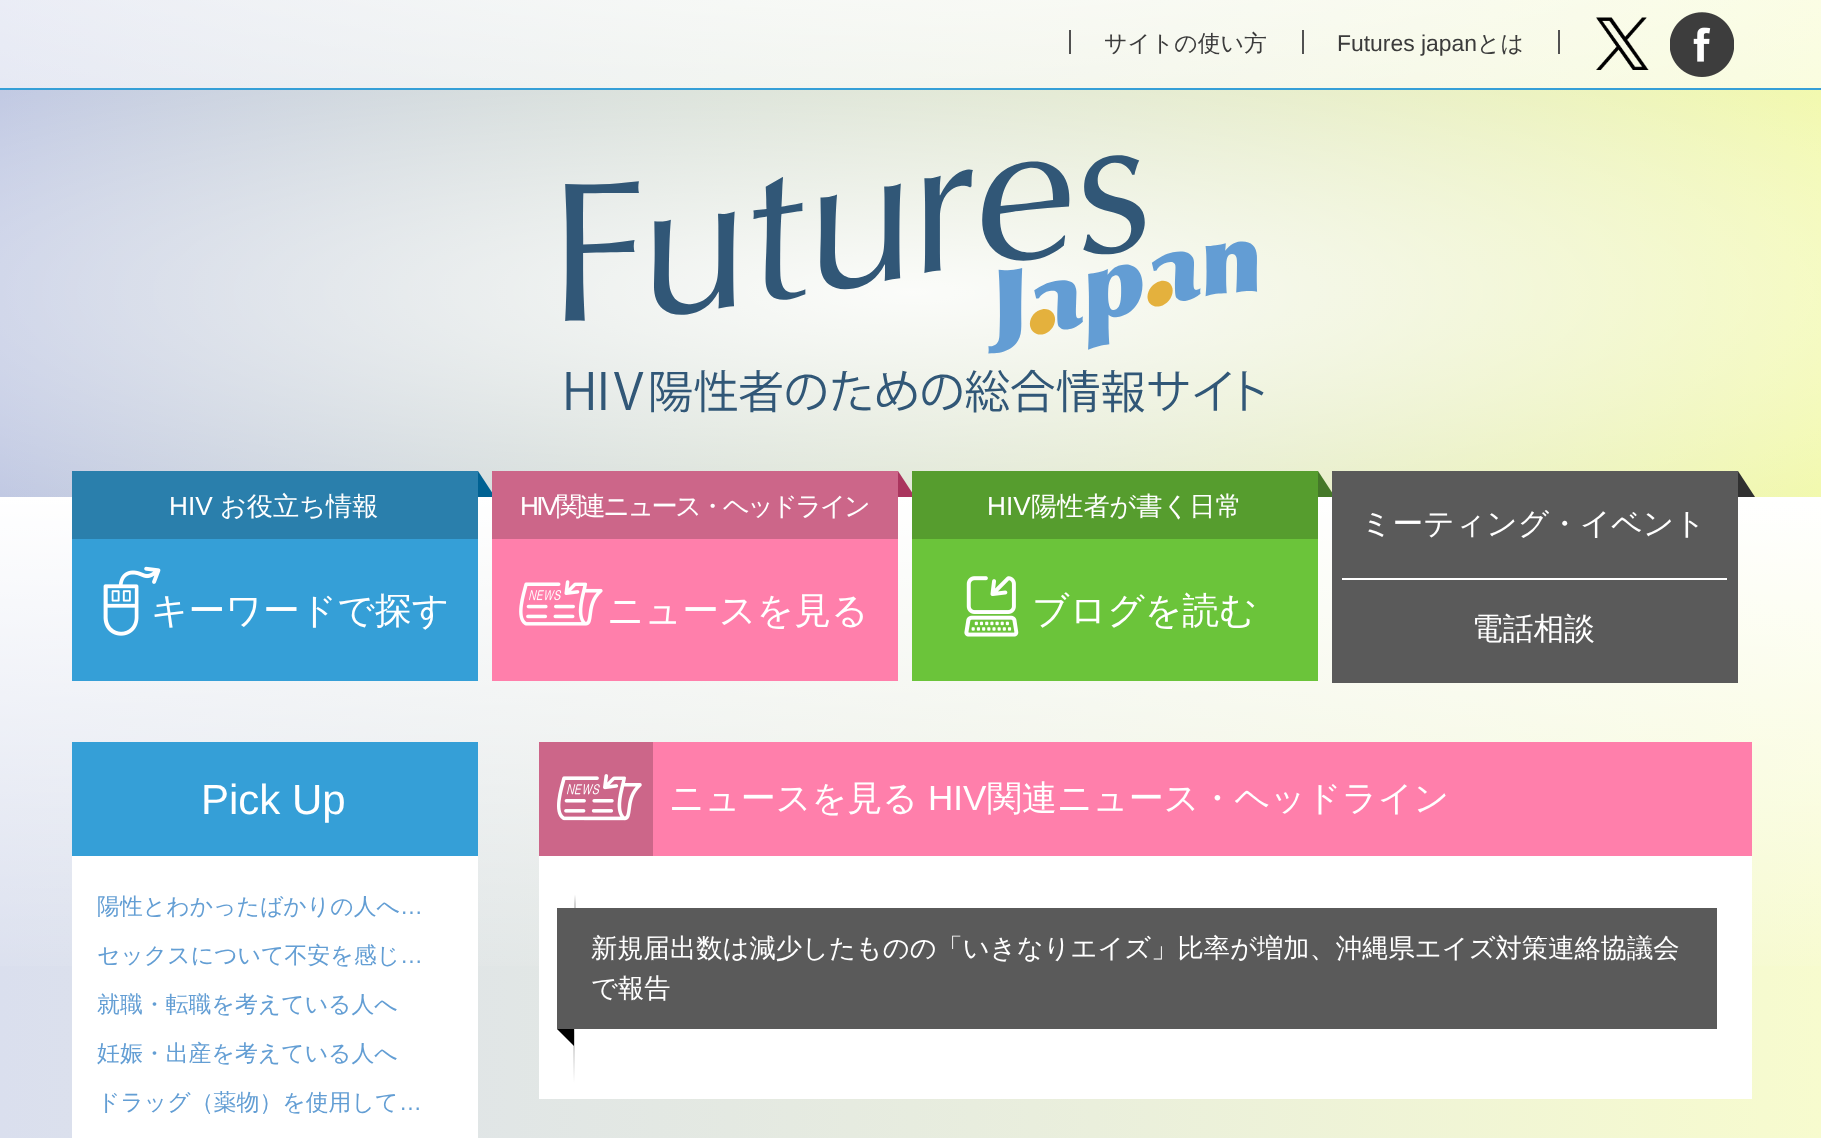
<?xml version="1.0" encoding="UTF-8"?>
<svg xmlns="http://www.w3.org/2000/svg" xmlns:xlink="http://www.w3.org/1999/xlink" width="1821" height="1138">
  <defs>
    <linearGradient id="g1" gradientUnits="userSpaceOnUse" x1="0" y1="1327" x2="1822" y2="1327"><stop offset="0" stop-color="#c1c9e3" /><stop offset="0.4" stop-color="#d2dbcf" /><stop offset="0.6" stop-color="#dce4c5" /><stop offset="1" stop-color="#f2f9ae" /></linearGradient>
    <linearGradient id="g2" gradientUnits="userSpaceOnUse" x1="0" y1="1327" x2="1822" y2="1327"><stop offset="0" stop-color="#e6e9f4" /><stop offset="0.4" stop-color="#edf1ec" /><stop offset="0.6" stop-color="#f1f4e8" /><stop offset="1" stop-color="#fafddf" /></linearGradient>
    <linearGradient id="g3" gradientUnits="userSpaceOnUse" x1="0" y1="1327" x2="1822" y2="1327"><stop offset="0" stop-color="#dadfee" /><stop offset="0.4" stop-color="#e4e9e2" /><stop offset="0.6" stop-color="#eaefdc" /><stop offset="1" stop-color="#f7fbce" /></linearGradient>
    <radialGradient id="g4" gradientUnits="userSpaceOnUse" cx="0" cy="0" r="1" gradientTransform="matrix(1288 0 0 290 911 -117)"><stop offset="0" stop-color="#ffffff" stop-opacity="0.9" /><stop offset="1" stop-color="#ffffff" stop-opacity="0" /></radialGradient>
    <radialGradient id="g5" gradientUnits="userSpaceOnUse" cx="0" cy="0" r="1" gradientTransform="matrix(1288 0 0 290 911 292)"><stop offset="0" stop-color="#ffffff" stop-opacity="0.9" /><stop offset="1" stop-color="#ffffff" stop-opacity="0" /></radialGradient>
    <linearGradient id="g6" gradientUnits="userSpaceOnUse" x1="911" y1="497" x2="911" y2="992"><stop offset="0" stop-color="#ffffff" /><stop offset="1" stop-color="#ffffff" stop-opacity="0" /></linearGradient>
    <linearGradient id="g7" gradientUnits="userSpaceOnUse" x1="575" y1="908" x2="575" y2="887"><stop offset="0" stop-color="#cccccc" /><stop offset="0.22" stop-color="#d5d5d5" /><stop offset="0.65" stop-color="#ffffff" /><stop offset="1" stop-color="#ffffff" /></linearGradient>
    <linearGradient id="g8" gradientUnits="userSpaceOnUse" x1="574" y1="1083" x2="574" y2="1029"><stop offset="0" stop-color="#ffffff" /><stop offset="0.87" stop-color="#cccccc" /><stop offset="1" stop-color="#d5d5d5" /></linearGradient>
  </defs>
  <rect width="100%" height="100%" fill="#ffffff" />
  <rect y="90" width="1821" height="407" fill="url(#g1)" />
  <rect width="1821" height="88" fill="url(#g2)" />
  <rect y="500" width="1821" height="638" fill="url(#g3)" />
  <rect width="1821" height="88" fill="url(#g4)" />
  <rect y="90" width="1821" height="407" fill="url(#g5)" />
  <rect x="1069" y="30" width="2" height="24" fill="#515151" />
  <rect x="1302" y="30" width="2" height="24" fill="#515151" />
  <rect x="1558" y="30" width="2" height="24" fill="#515151" />
  <image x="1596" y="17" width="53" height="53" xlink:href="image1.png" />
  <image x="1670" y="12" width="64" height="65" xlink:href="image2.png" />
  <image x="565" y="155" width="699" height="258" xlink:href="image3.png" />
  <rect y="500" width="1821" height="466" fill="url(#g6)" />
  <rect x="72" y="539" width="406" height="142" fill="#359fd7" />
  <rect x="72" y="471" width="406" height="68" fill="#2a7fac" />
  <path d="M 478 497 v -26 l 17 26 z" fill="#006192" />
  <rect x="492" y="539" width="406" height="142" fill="#ff7fab" />
  <rect x="492" y="471" width="406" height="68" fill="#cc6689" />
  <path d="M 898 497 v -26 l 17 26 z" fill="#aa355e" />
  <image x="519" y="580" width="84" height="46" xlink:href="image5.png" />
  <rect x="912" y="539" width="406" height="142" fill="#6bc43a" />
  <rect x="912" y="471" width="406" height="68" fill="#569d2e" />
  <path d="M 1318 497 v -26 l 17 26 z" fill="#457829" />
  <image x="964" y="576" width="55" height="61" xlink:href="image6.png" />
  <rect x="1332" y="471" width="406" height="212" fill="#5a5a5a" />
  <path d="M 1738 497 v -26 l 17 26 z" fill="#303030" />
  <rect x="1342" y="578" width="385" height="2" fill="#ffffff" />
  <rect y="88" width="1821" height="2" fill="#359fd7" />
  <rect x="72" y="856" width="406" height="282" fill="#ffffff" />
  <rect x="72" y="742" width="406" height="114" fill="#359fd7" />
  <rect x="539" y="856" width="1213" height="243" fill="#ffffff" />
  <rect x="653" y="742" width="1099" height="114" fill="#ff7fab" />
  <rect x="539" y="742" width="114" height="114" fill="#cc6689" />
  <image x="557" y="774" width="85" height="47" xlink:href="image7.png" />
  <rect x="557" y="908" width="1160" height="121" fill="#5a5a5a" />
  <rect x="574" y="887" width="2" height="21" fill="url(#g7)" />
  <rect x="573" y="1029" width="2" height="54" fill="url(#g8)" />
  <path d="M 557 1029 h 17 v 17 z" fill="#000000" fill-rule="evenodd" />
  <text x="1104" y="51" style="font-family: WenQuanYi Zen Hei; font-size: 22.9px; font-weight: 500; fill: #3b3b3b">サイトの使い方</text>
  <text x="1337" y="51" style="font-family: Liberation Sans; font-size: 22.9px; fill: #3b3b3b">Futures japan</text>
  <text x="1477" y="51" style="font-family: WenQuanYi Zen Hei; font-size: 22.9px; font-weight: 500; fill: #3b3b3b">とは</text>
  <text x="169" y="515" style="font-family: Liberation Sans; font-size: 26.2px; fill: #ffffff">HIV</text>
  <text x="220" y="515" style="font-family: WenQuanYi Zen Hei; font-size: 26.2px; font-weight: 500; fill: #ffffff">お役立ち情報</text>
  <text x="151" y="623" style="font-family: WenQuanYi Zen Hei; font-size: 36.75px; font-weight: 500; fill: #ffffff">キーワードで探す</text>
  <image x="103" y="566" width="58" height="70" xlink:href="image4.png" />
  <text x="520" y="515" style="font-family: Liberation Sans; font-size: 26.2px; letter-spacing: -2.6px; fill: #ffffff">HIV</text>
  <text x="556" y="515" style="font-family: WenQuanYi Zen Hei; font-size: 26.2px; font-weight: 500; letter-spacing: -2.6px; fill: #ffffff">関連ニュース・ヘッドライン</text>
  <text x="607" y="623" style="font-family: WenQuanYi Zen Hei; font-size: 36.75px; font-weight: 500; fill: #ffffff">ニュースを見る</text>
  <text x="987" y="515" style="font-family: Liberation Sans; font-size: 26.2px; fill: #ffffff">HIV</text>
  <text x="1031" y="515" style="font-family: WenQuanYi Zen Hei; font-size: 26.2px; font-weight: 500; fill: #ffffff">陽性者が書く日常</text>
  <text x="1032" y="623" style="font-family: WenQuanYi Zen Hei; font-size: 36.75px; font-weight: 500; fill: #ffffff">ブログを読む</text>
  <text x="1361" y="534" style="font-family: WenQuanYi Zen Hei; font-size: 30.75px; font-weight: 500; fill: #ffffff">ミーティング・イベント</text>
  <text x="1472" y="639" style="font-family: WenQuanYi Zen Hei; font-size: 30.75px; font-weight: 500; fill: #ffffff">電話相談</text>
  <text x="201" y="814" style="font-family: Liberation Sans; font-size: 42px; fill: #ffffff">Pick Up</text>
  <text x="97" y="914" style="font-family: WenQuanYi Zen Hei; font-size: 22.9px; font-weight: 500; fill: #639ed4">陽性とわかったばかりの人へ</text>
  <text x="400" y="914" style="font-family: Liberation Sans; font-size: 22.9px; fill: #639ed4">…</text>
  <text x="97" y="963" style="font-family: WenQuanYi Zen Hei; font-size: 22.9px; font-weight: 500; fill: #639ed4">セックスについて不安を感じ</text>
  <text x="400" y="963" style="font-family: Liberation Sans; font-size: 22.9px; fill: #639ed4">…</text>
  <text x="97" y="1012" style="font-family: WenQuanYi Zen Hei; font-size: 22.9px; font-weight: 500; fill: #639ed4">就職・転職を考えている人へ</text>
  <text x="97" y="1061" style="font-family: WenQuanYi Zen Hei; font-size: 22.9px; font-weight: 500; fill: #639ed4">妊娠・出産を考えている人へ</text>
  <text x="97" y="1110" style="font-family: WenQuanYi Zen Hei; font-size: 22.9px; font-weight: 500; fill: #639ed4">ドラッグ（薬物）を使用して</text>
  <text x="399" y="1110" style="font-family: Liberation Sans; font-size: 22.9px; fill: #639ed4">…</text>
  <text x="669" y="810" style="font-family: WenQuanYi Zen Hei; font-size: 35px; font-weight: 500; fill: #ffffff">ニュースを見る</text>
  <text x="928" y="810" style="font-family: Liberation Sans; font-size: 35px; fill: #ffffff">HIV</text>
  <text x="987" y="810" style="font-family: WenQuanYi Zen Hei; font-size: 35px; font-weight: 500; fill: #ffffff">関連ニュース・ヘッドライン</text>
  <text x="591" y="957" style="font-family: WenQuanYi Zen Hei; font-size: 26.3px; font-weight: 500; fill: #ffffff">新規届出数は減少したものの「いきなりエイズ」比率が増加、沖縄県エイズ対策連絡協議会</text>
  <text x="591" y="997" style="font-family: WenQuanYi Zen Hei; font-size: 26.3px; font-weight: 500; fill: #ffffff">で報告</text>
</svg>
